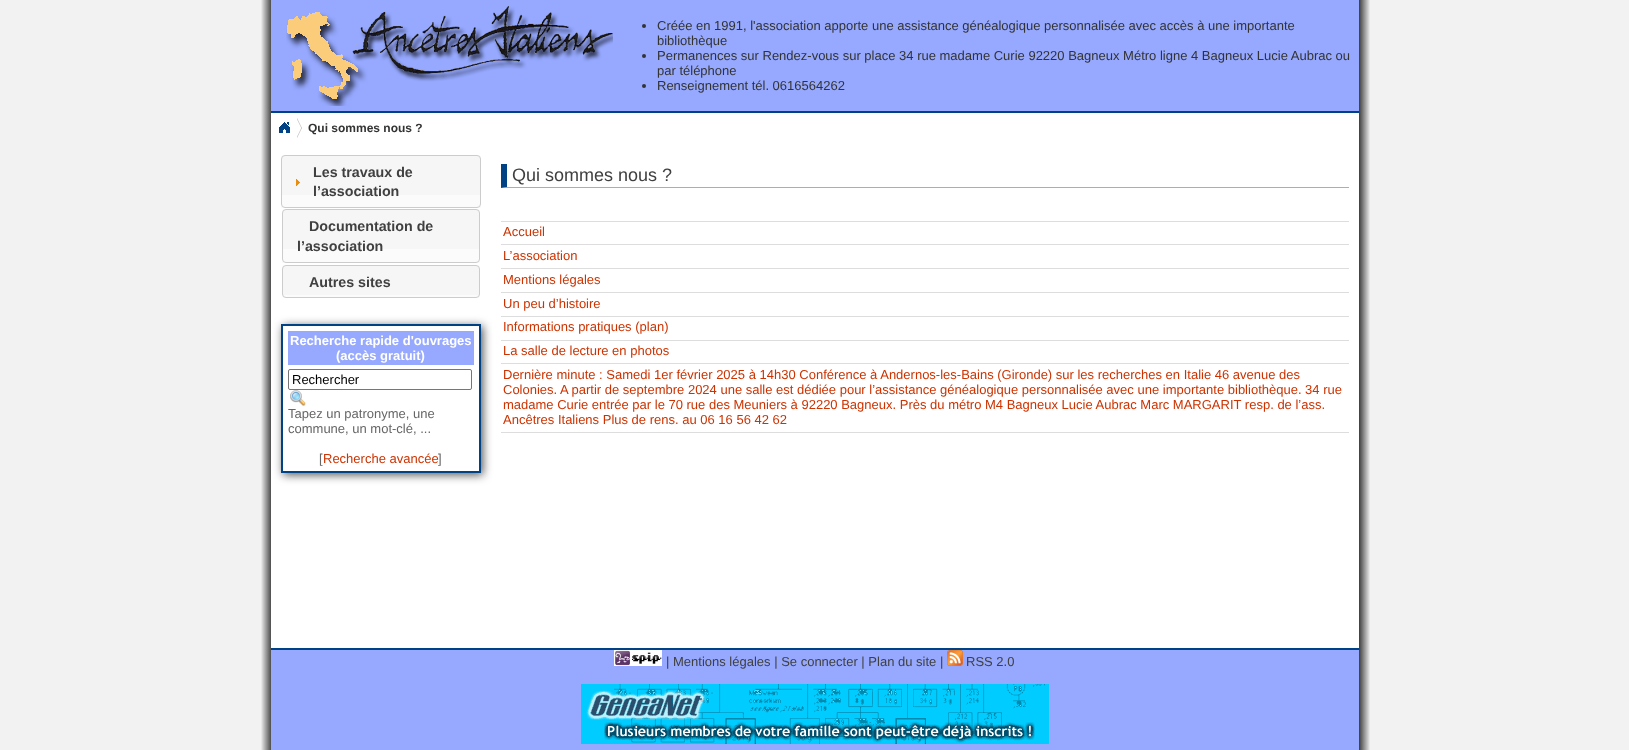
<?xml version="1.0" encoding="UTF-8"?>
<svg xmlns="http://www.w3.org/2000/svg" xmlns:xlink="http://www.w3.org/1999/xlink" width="1629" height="750">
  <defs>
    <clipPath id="clip1"><path d="M 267 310 h 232 v 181 h -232 z m 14 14 h 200 v 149 h -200 z" clip-rule="evenodd" /></clipPath>
  </defs>
  <rect width="100%" height="100%" fill="#f2f2f2" />
  <image x="261" y="0" width="1109" height="750" xlink:href="image1.png" />
  <rect x="271" y="113" width="1088" height="535" fill="#ffffff" />
  <rect x="271" width="1088" height="111" fill="#96a9ff" />
  <rect x="271" y="111" width="1088" height="2" fill="#004284" />
  <image x="286" y="6" width="327" height="100" xlink:href="image2.png" />
  <circle cx="644" cy="26" r="2" fill="#333333" />
  <circle cx="644" cy="56" r="2" fill="#333333" />
  <circle cx="644" cy="86" r="2" fill="#333333" />
  <image x="297" y="118" width="5" height="20" xlink:href="image3.png" />
  <image x="279" y="122" width="11" height="11" xlink:href="image4.png" />
  <rect x="281" y="155" width="200" height="53" rx="4" fill="#f6f6f6" />
  <rect x="281" y="195" width="200" height="13" fill="#fbfbfb" />
  <rect x="281.5" y="155.5" width="199" height="52" rx="3.5" fill="none" stroke="#cccccc" />
  <image x="296" y="179" width="4" height="7" xlink:href="image5.png" />
  <rect x="282" y="209" width="198" height="54" rx="4" fill="#f6f6f6" />
  <rect x="282" y="249" width="198" height="14" fill="#fbfbfb" />
  <rect x="282.5" y="209.5" width="197" height="53" rx="3.5" fill="none" stroke="#cccccc" />
  <rect x="282" y="265" width="198" height="33" rx="4" fill="#f6f6f6" />
  <rect x="283" y="295" width="196" height="3" fill="#fbfbfb" />
  <rect x="282.5" y="265.5" width="197" height="32" rx="3.5" fill="none" stroke="#cccccc" />
  <g clip-path="url(#clip1)">
    <rect x="283" y="326" width="200" height="149" fill="#555555" filter="blur(5px)" />
  </g>
  <rect x="282" y="325" width="198" height="147" fill="none" stroke="#004284" stroke-width="2" />
  <rect x="288" y="331" width="186" height="34" fill="#96a9ff" />
  <rect x="288.5" y="369.5" width="183" height="20" rx="1.5" fill="none" stroke="#767676" />
  <image x="290" y="390" width="16" height="16" xlink:href="image6.png" />
  <path d="M 1349 188 h -848 l 6 -1 h 842 z" fill="#96a9ff" />
  <path d="M 501 188 v -24 h 6 v 23 z" fill="#004284" />
  <rect x="501" y="432" width="848" height="1" fill="#dddddd" />
  <rect x="501" y="221" width="848" height="1" fill="#dddddd" />
  <rect x="501" y="244" width="848" height="1" fill="#dddddd" />
  <rect x="501" y="268" width="848" height="1" fill="#dddddd" />
  <rect x="501" y="292" width="848" height="1" fill="#dddddd" />
  <rect x="501" y="316" width="848" height="1" fill="#dddddd" />
  <rect x="501" y="340" width="848" height="1" fill="#dddddd" />
  <rect x="501" y="363" width="848" height="1" fill="#dddddd" />
  <rect x="271" y="650" width="1088" height="100" fill="#96a9ff" />
  <rect x="271" y="648" width="1088" height="2" fill="#004284" />
  <image x="614" y="650" width="48" height="16" xlink:href="image7.png" />
  <image x="947" y="650" width="16" height="16" xlink:href="image8.png" />
  <image x="581" y="684" width="468" height="60" xlink:href="image9.png" />
  <text x="657" y="30" style="font-family: Liberation Sans; font-size: 13px; fill: #333333">Créée en 1991, l'association apporte une assistance généalogique personnalisée avec accès à une importante</text>
  <text x="657" y="45" style="font-family: Liberation Sans; font-size: 13px; fill: #333333">bibliothèque</text>
  <text x="657" y="60" style="font-family: Liberation Sans; font-size: 13px; fill: #333333">Permanences sur Rendez-vous sur place 34 rue madame Curie 92220 Bagneux Métro ligne 4 Bagneux Lucie Aubrac ou</text>
  <text x="657" y="75" style="font-family: Liberation Sans; font-size: 13px; fill: #333333">par téléphone</text>
  <text x="657" y="90" style="font-family: Liberation Sans; font-size: 13px; fill: #333333">Renseignement tél. 0616564262</text>
  <text x="308" y="132" style="font-family: Liberation Sans; font-size: 12px; font-weight: bold; fill: #333333">Qui sommes nous ?</text>
  <text x="313" y="177" style="font-family: Liberation Sans; font-size: 14.25px; font-weight: bold; fill: #404040">Les travaux de</text>
  <text x="313" y="196" style="font-family: Liberation Sans; font-size: 14.25px; font-weight: bold; fill: #404040">l’association</text>
  <text x="309" y="231" style="font-family: Liberation Sans; font-size: 14.25px; font-weight: bold; fill: #404040">Documentation de</text>
  <text x="297" y="251" style="font-family: Liberation Sans; font-size: 14.25px; font-weight: bold; fill: #404040">l’association</text>
  <text x="309" y="287" style="font-family: Liberation Sans; font-size: 14.25px; font-weight: bold; fill: #404040">Autres sites</text>
  <text x="290" y="345" style="font-family: Liberation Sans; font-size: 13px; font-weight: bold; fill: #ffffff">Recherche rapide d'ouvrages</text>
  <text x="336" y="360" style="font-family: Liberation Sans; font-size: 13px; font-weight: bold; fill: #ffffff">(accès gratuit)</text>
  <text x="292" y="384" style="font-family: Liberation Sans; font-size: 13px; fill: #000000">Rechercher</text>
  <text x="288" y="418" style="font-family: Liberation Sans; font-size: 13px; fill: #666666">Tapez un patronyme, une</text>
  <text x="288" y="433" style="font-family: Liberation Sans; font-size: 13px; fill: #666666">commune, un mot-clé, ...</text>
  <text x="319" y="463" style="font-family: Liberation Sans; font-size: 13px; fill: #666666">[</text>
  <text x="323" y="463" style="font-family: Liberation Sans; font-size: 13px; fill: #cc3300">Recherche avancée</text>
  <text x="438" y="463" style="font-family: Liberation Sans; font-size: 13px; fill: #666666">]</text>
  <text x="512" y="181" style="font-family: Liberation Sans; font-size: 18px; fill: #404040">Qui sommes nous ?</text>
  <text x="503" y="236" style="font-family: Liberation Sans; font-size: 13px; fill: #cc3300">Accueil</text>
  <text x="503" y="260" style="font-family: Liberation Sans; font-size: 13px; fill: #cc3300">L’association</text>
  <text x="503" y="284" style="font-family: Liberation Sans; font-size: 13px; fill: #cc3300">Mentions légales</text>
  <text x="503" y="308" style="font-family: Liberation Sans; font-size: 13px; fill: #cc3300">Un peu d’histoire</text>
  <text x="503" y="331" style="font-family: Liberation Sans; font-size: 13px; fill: #cc3300">Informations pratiques (plan)</text>
  <text x="503" y="355" style="font-family: Liberation Sans; font-size: 13px; fill: #cc3300">La salle de lecture en photos</text>
  <text x="503" y="379" style="font-family: Liberation Sans; font-size: 13px; fill: #cc3300">Dernière minute : Samedi 1er février 2025 à 14h30 Conférence à Andernos-les-Bains (Gironde) sur les recherches en Italie 46 avenue des</text>
  <text x="503" y="394" style="font-family: Liberation Sans; font-size: 13px; fill: #cc3300">Colonies.</text>
  <text x="560" y="394" style="font-family: Liberation Sans; font-size: 13px; fill: #cc3300">A partir de septembre 2024 une salle est dédiée pour l’assistance généalogique personnalisée avec une importante bibliothèque. 34 rue</text>
  <text x="503" y="409" style="font-family: Liberation Sans; font-size: 13px; fill: #cc3300">madame Curie entrée par le 70 rue des Meuniers à 92220 Bagneux. Près du métro M4 Bagneux Lucie Aubrac Marc MARGARIT resp. de l’ass.</text>
  <text x="503" y="424" style="font-family: Liberation Sans; font-size: 13px; fill: #cc3300">Ancêtres Italiens Plus de rens. au 06 16 56 42 62</text>
  <text x="666" y="666" style="font-family: Liberation Sans; font-size: 13px; fill: #404040">| Mentions légales | Se connecter | Plan du site |</text>
  <text x="966" y="666" style="font-family: Liberation Sans; font-size: 13px; fill: #404040">RSS 2.0</text>
</svg>
